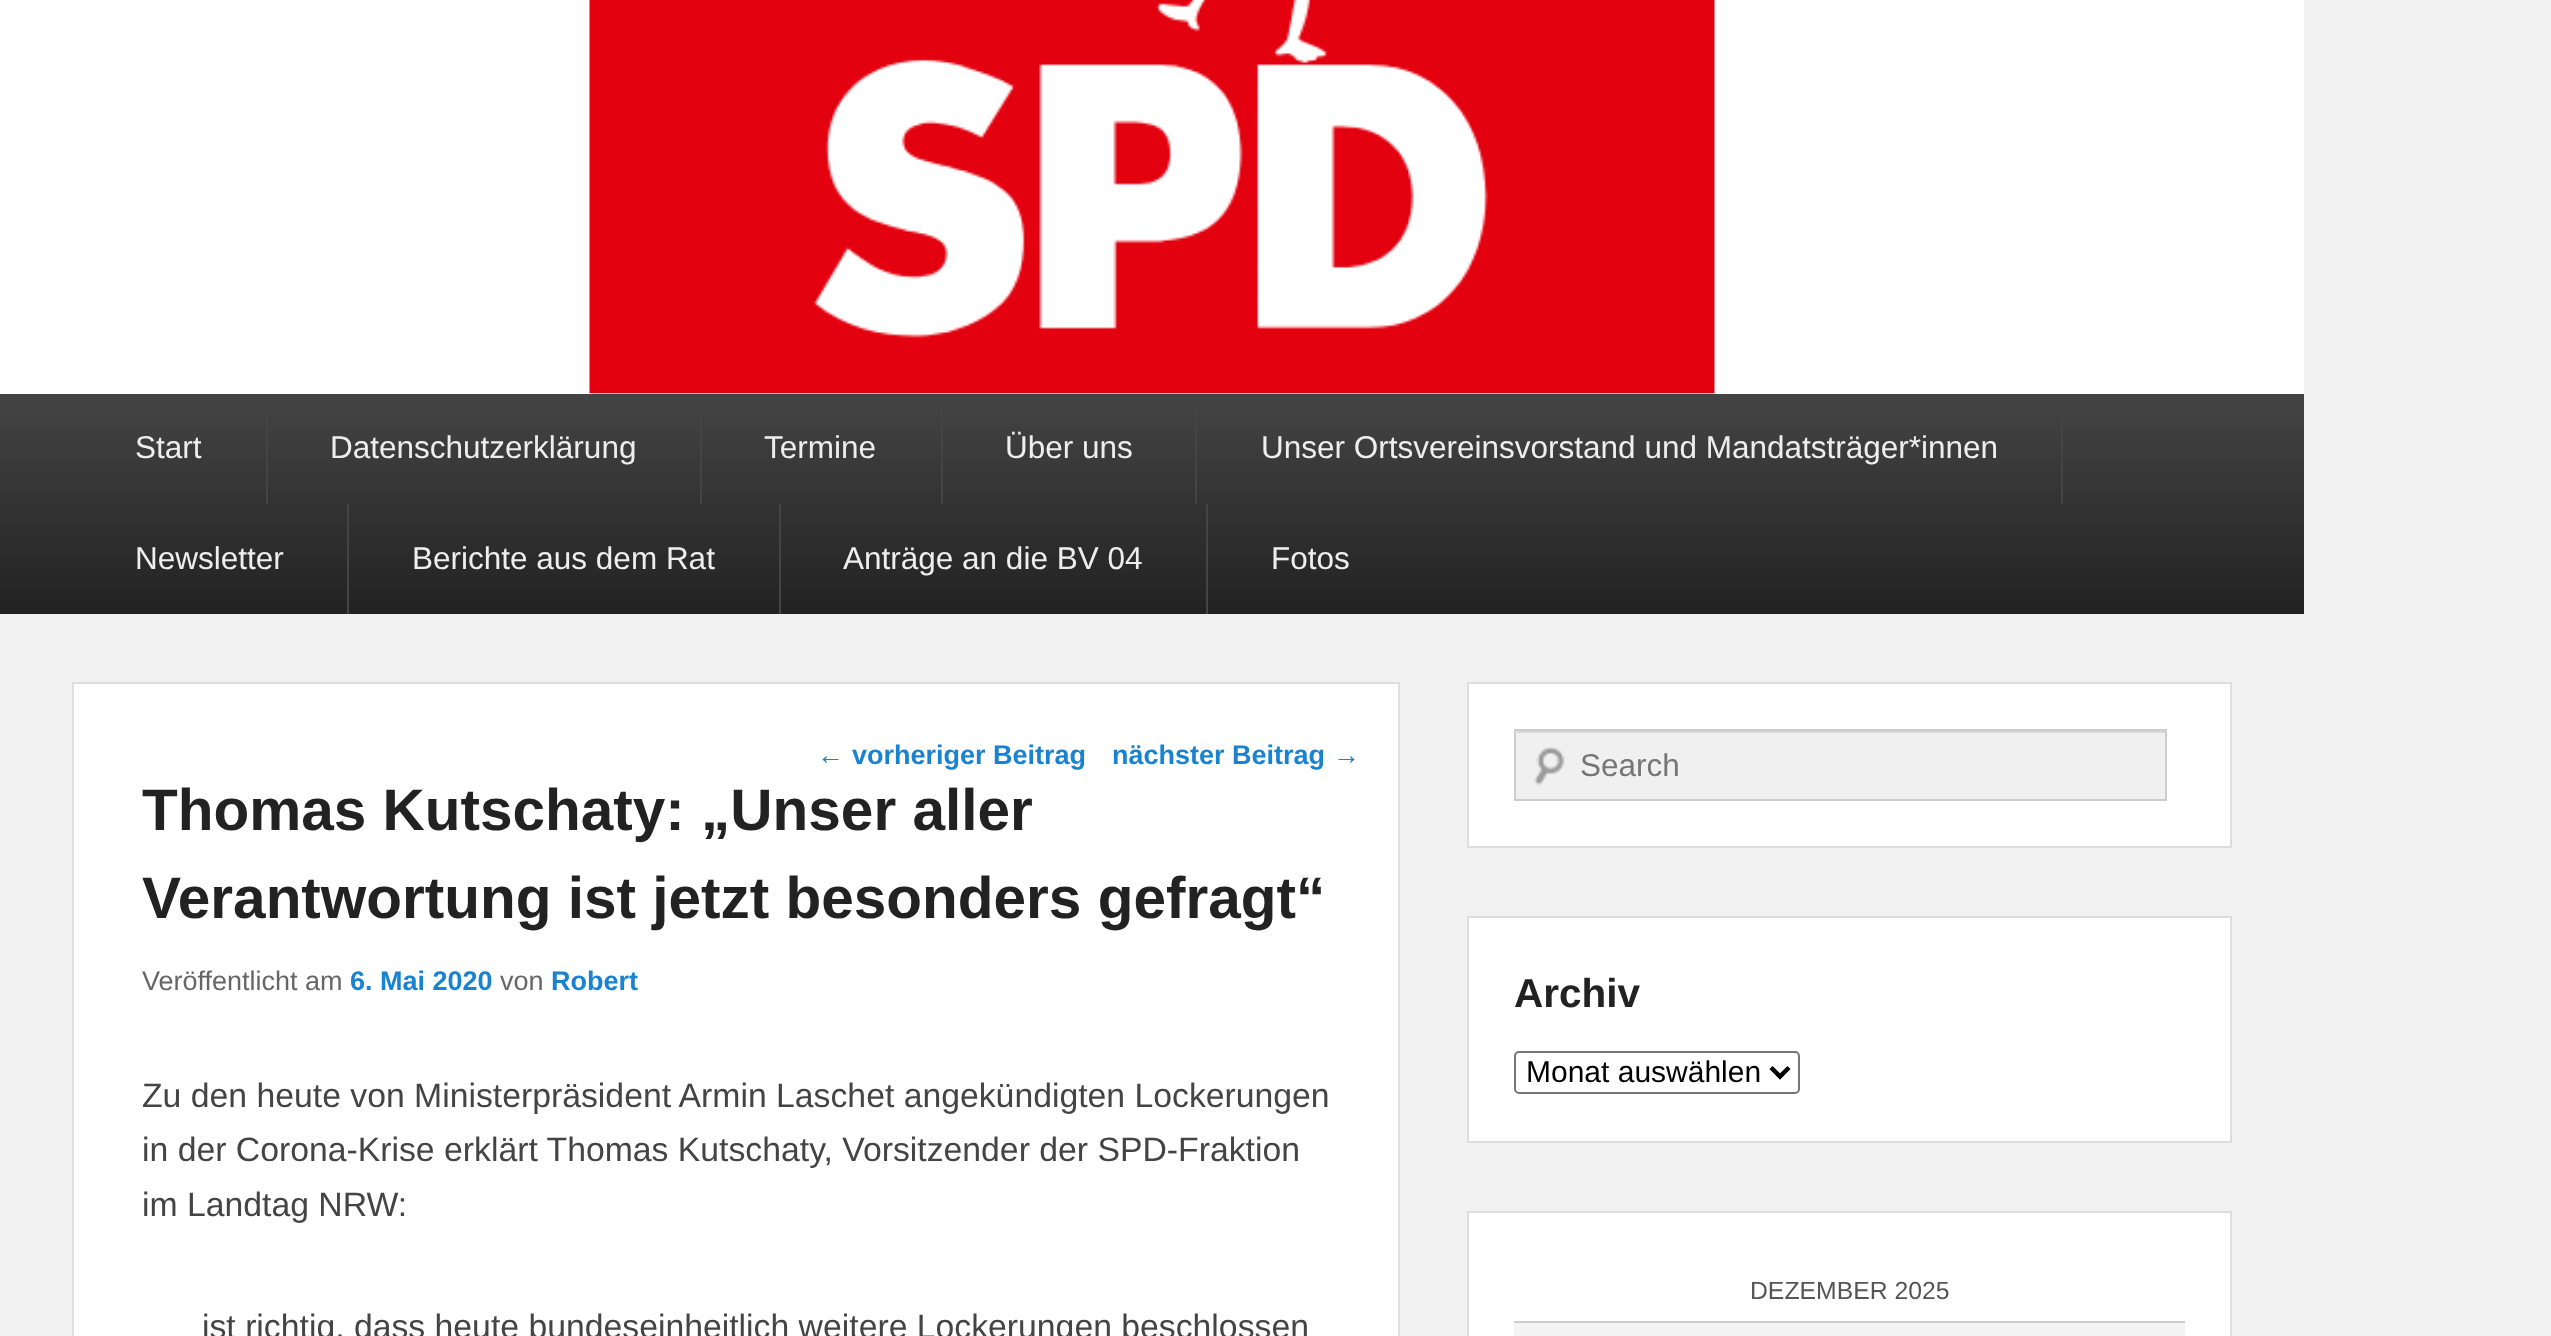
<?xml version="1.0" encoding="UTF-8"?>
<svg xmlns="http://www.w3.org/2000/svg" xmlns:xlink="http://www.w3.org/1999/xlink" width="2551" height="1336">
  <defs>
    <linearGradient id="g1" gradientUnits="userSpaceOnUse" x1="1152" y1="394" x2="1152" y2="614"><stop offset="0" stop-color="#444444" /><stop offset="1" stop-color="#222222" /></linearGradient>
  </defs>
  <rect width="100%" height="100%" fill="#f1f1f1" />
  <rect width="2304" height="394" fill="#ffffff" />
  <image x="589" y="0" width="1126" height="394" xlink:href="image1.png" />
  <rect y="394" width="2304" height="220" fill="url(#g1)" />
  <rect x="266" y="410" width="2" height="94" fill="#444444" />
  <rect x="700" y="410" width="2" height="94" fill="#444444" />
  <rect x="941" y="410" width="2" height="94" fill="#444444" />
  <rect x="1195" y="410" width="2" height="94" fill="#444444" />
  <rect x="2061" y="410" width="2" height="94" fill="#444444" />
  <rect x="347" y="504" width="2" height="110" fill="#444444" />
  <rect x="779" y="504" width="2" height="110" fill="#444444" />
  <rect x="1206" y="504" width="2" height="110" fill="#444444" />
  <rect x="73" y="683" width="1326" height="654" fill="#ffffff" stroke="#dddddd" stroke-width="2" />
  <rect x="1468" y="683" width="763" height="164" fill="#ffffff" stroke="#dddddd" stroke-width="2" />
  <rect x="1516" y="731" width="649" height="68" fill="#f0f0f0" />
  <image x="1534" y="746" width="31" height="40" xlink:href="image2.png" />
  <rect x="1517" y="731" width="648" height="2" fill="#d8d8d8" />
  <rect x="1515" y="730" width="651" height="70" fill="none" stroke="#cccccc" stroke-width="2" />
  <rect x="1468" y="917" width="763" height="225" fill="#ffffff" stroke="#dddddd" stroke-width="2" />
  <rect x="1515" y="1052" width="284" height="41" rx="4" fill="none" stroke="#767676" stroke-width="2" />
  <path d="M 1771 1067.5 l 9 9 l 9 -9" fill="none" stroke="#000000" stroke-width="4.5" />
  <rect x="1468" y="1212" width="763" height="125" fill="#ffffff" stroke="#dddddd" stroke-width="2" />
  <rect x="1514" y="1323" width="671" height="13" fill="#f4f4f4" />
  <rect x="1514" y="1321" width="671" height="2" fill="#cccccc" />
  <text x="135" y="458" style="font-family: Liberation Sans; font-size: 31.5px; fill: #eeeeee">Start</text>
  <text x="330" y="458" style="font-family: Liberation Sans; font-size: 31.5px; fill: #eeeeee">Datenschutzerklärung</text>
  <text x="764" y="458" style="font-family: Liberation Sans; font-size: 31.5px; fill: #eeeeee">Termine</text>
  <text x="1005" y="458" style="font-family: Liberation Sans; font-size: 31.5px; fill: #eeeeee">Über uns</text>
  <text x="1261" y="458" style="font-family: Liberation Sans; font-size: 31.5px; fill: #eeeeee">Unser Ortsvereinsvorstand und Mandatsträger*innen</text>
  <text x="135" y="569" style="font-family: Liberation Sans; font-size: 31.5px; fill: #eeeeee">Newsletter</text>
  <text x="412" y="569" style="font-family: Liberation Sans; font-size: 31.5px; fill: #eeeeee">Berichte aus dem Rat</text>
  <text x="843" y="569" style="font-family: Liberation Sans; font-size: 31.5px; fill: #eeeeee">Anträge an die BV 04</text>
  <text x="1271" y="569" style="font-family: Liberation Sans; font-size: 31.5px; fill: #eeeeee">Fotos</text>
  <text x="817" y="764" style="font-family: Liberation Sans; font-size: 27px; fill: #1982d1">←</text>
  <text x="852" y="764" style="font-family: Liberation Sans; font-size: 27px; font-weight: bold; fill: #1982d1">vorheriger Beitrag</text>
  <text x="1112" y="764" style="font-family: Liberation Sans; font-size: 27px; font-weight: bold; fill: #1982d1">nächster Beitrag</text>
  <text x="1333" y="764" style="font-family: Liberation Sans; font-size: 27px; fill: #1982d1">→</text>
  <text x="142" y="830" style="font-family: Liberation Sans; font-size: 58.5px; font-weight: bold; fill: #222222">Thomas Kutschaty: „Unser aller</text>
  <text x="142" y="918" style="font-family: Liberation Sans; font-size: 58.5px; font-weight: bold; fill: #222222">Verantwortung ist jetzt besonders gefragt“</text>
  <text x="142" y="990" style="font-family: Liberation Sans; font-size: 27px; fill: #666666">Veröffentlicht am</text>
  <text x="350" y="990" style="font-family: Liberation Sans; font-size: 27px; font-weight: bold; fill: #1982d1">6. Mai 2020</text>
  <text x="500" y="990" style="font-family: Liberation Sans; font-size: 27px; fill: #666666">von</text>
  <text x="551" y="990" style="font-family: Liberation Sans; font-size: 27px; font-weight: bold; fill: #1982d1">Robert</text>
  <text x="142" y="1107" style="font-family: Liberation Sans; font-size: 33.75px; fill: #444444">Zu den heute von Ministerpräsident Armin Laschet angekündigten Lockerungen</text>
  <text x="142" y="1161" style="font-family: Liberation Sans; font-size: 33.75px; fill: #444444">in der Corona-Krise erklärt Thomas Kutschaty, Vorsitzender der SPD-Fraktion</text>
  <text x="142" y="1216" style="font-family: Liberation Sans; font-size: 33.75px; fill: #444444">im Landtag NRW:</text>
  <text x="202" y="1338" style="font-family: Liberation Sans; font-size: 33.75px; fill: #444444">ist richtig, dass heute bundeseinheitlich weitere Lockerungen beschlossen</text>
  <text x="1580" y="776" style="font-family: Liberation Sans; font-size: 31.5px; fill: #757575">Search</text>
  <text x="1514" y="1007" style="font-family: Liberation Sans; font-size: 40.5px; font-weight: bold; fill: #222222">Archiv</text>
  <text x="1526" y="1082" style="font-family: Liberation Sans; font-size: 30px; fill: #000000">Monat auswählen</text>
  <text x="1750" y="1299" style="font-family: Liberation Sans; font-size: 24.75px; fill: #555555">DEZEMBER 2025</text>
</svg>
